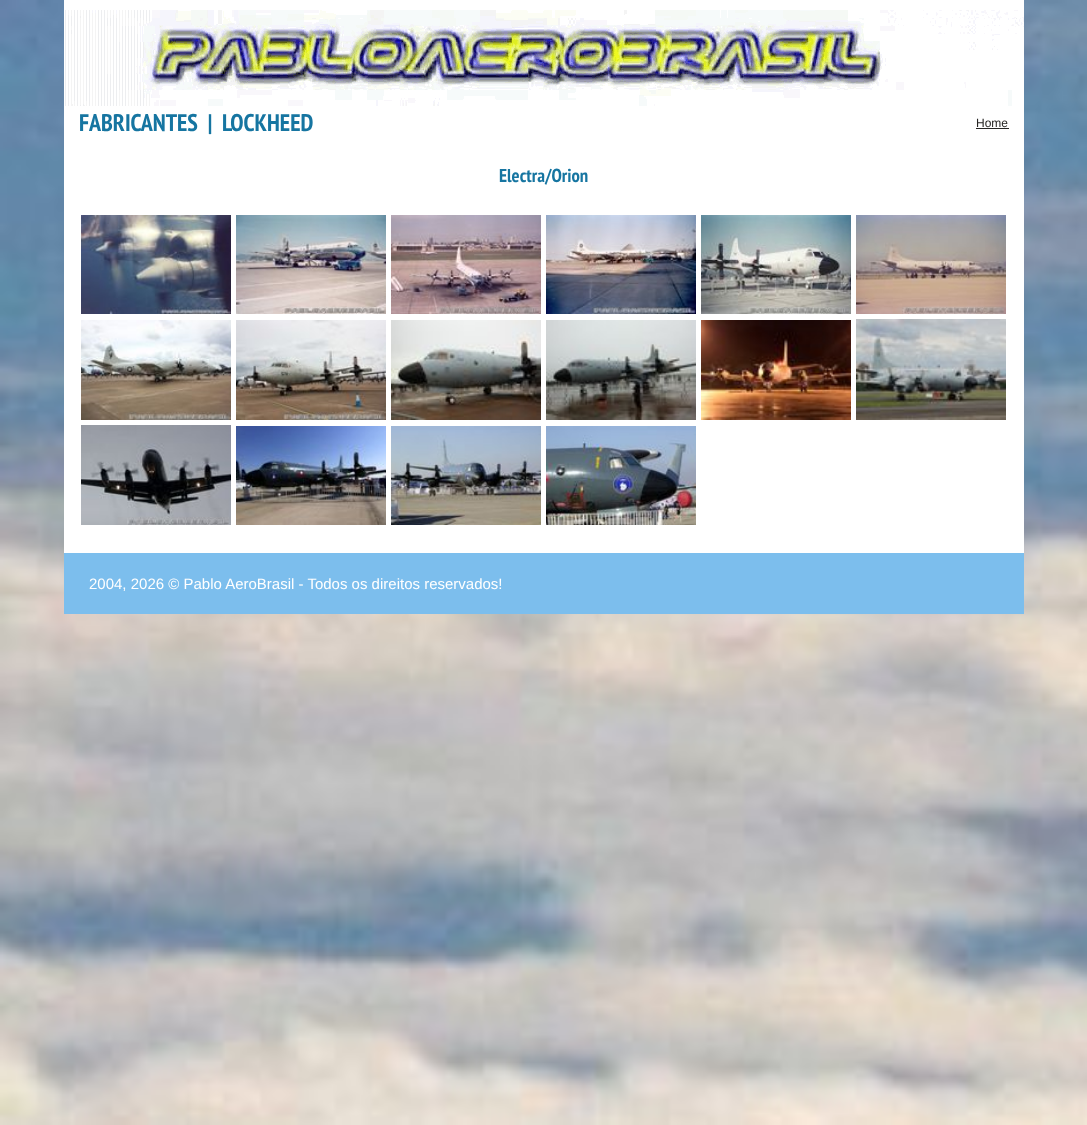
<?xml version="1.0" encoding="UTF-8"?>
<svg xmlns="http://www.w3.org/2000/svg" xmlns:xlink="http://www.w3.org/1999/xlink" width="1087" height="1125">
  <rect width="100%" height="100%" fill="#ffffff" />
  <image x="0" y="0" width="1087" height="1125" xlink:href="image1.png" />
  <rect x="64" width="960" height="553" fill="#ffffff" />
  <image x="65" y="10" width="959" height="96" xlink:href="image2.png" />
  <rect x="976" y="128" width="33" height="1" fill="#272624" />
  <image x="81" y="215" width="150" height="99" xlink:href="image3.png" />
  <image x="236" y="215" width="150" height="99" xlink:href="image4.png" />
  <image x="391" y="215" width="150" height="99" xlink:href="image5.png" />
  <image x="546" y="215" width="150" height="99" xlink:href="image6.png" />
  <image x="701" y="215" width="150" height="99" xlink:href="image7.png" />
  <image x="856" y="215" width="150" height="99" xlink:href="image8.png" />
  <image x="81" y="320" width="150" height="100" xlink:href="image9.png" />
  <image x="236" y="320" width="150" height="100" xlink:href="image10.png" />
  <image x="391" y="320" width="150" height="100" xlink:href="image11.png" />
  <image x="546" y="320" width="150" height="100" xlink:href="image12.png" />
  <image x="701" y="320" width="150" height="100" xlink:href="image13.png" />
  <image x="856" y="319" width="150" height="101" xlink:href="image14.png" />
  <image x="81" y="425" width="150" height="100" xlink:href="image15.png" />
  <image x="236" y="426" width="150" height="99" xlink:href="image16.png" />
  <image x="391" y="426" width="150" height="99" xlink:href="image17.png" />
  <image x="546" y="426" width="150" height="99" xlink:href="image18.png" />
  <rect x="64" y="553" width="960" height="61" fill="#7cbeed" />
  <text x="79" y="131" style="font-family: PT Sans Narrow; font-size: 24px; font-weight: bold; fill: #1675a1" xml:space="preserve">FABRICANTES  |  LOCKHEED</text>
  <text x="976" y="127" style="font-family: Liberation Sans; font-size: 12px; fill: #272624">Home</text>
  <text x="499" y="182" style="font-family: PT Sans Narrow; font-size: 18.75px; font-weight: bold; fill: #1675a1">Electra/Orion</text>
  <text x="89" y="589" style="font-family: Liberation Sans; font-size: 15px; fill: #ffffff">2004, 2026 © Pablo AeroBrasil - Todos os direitos reservados!</text>
</svg>
